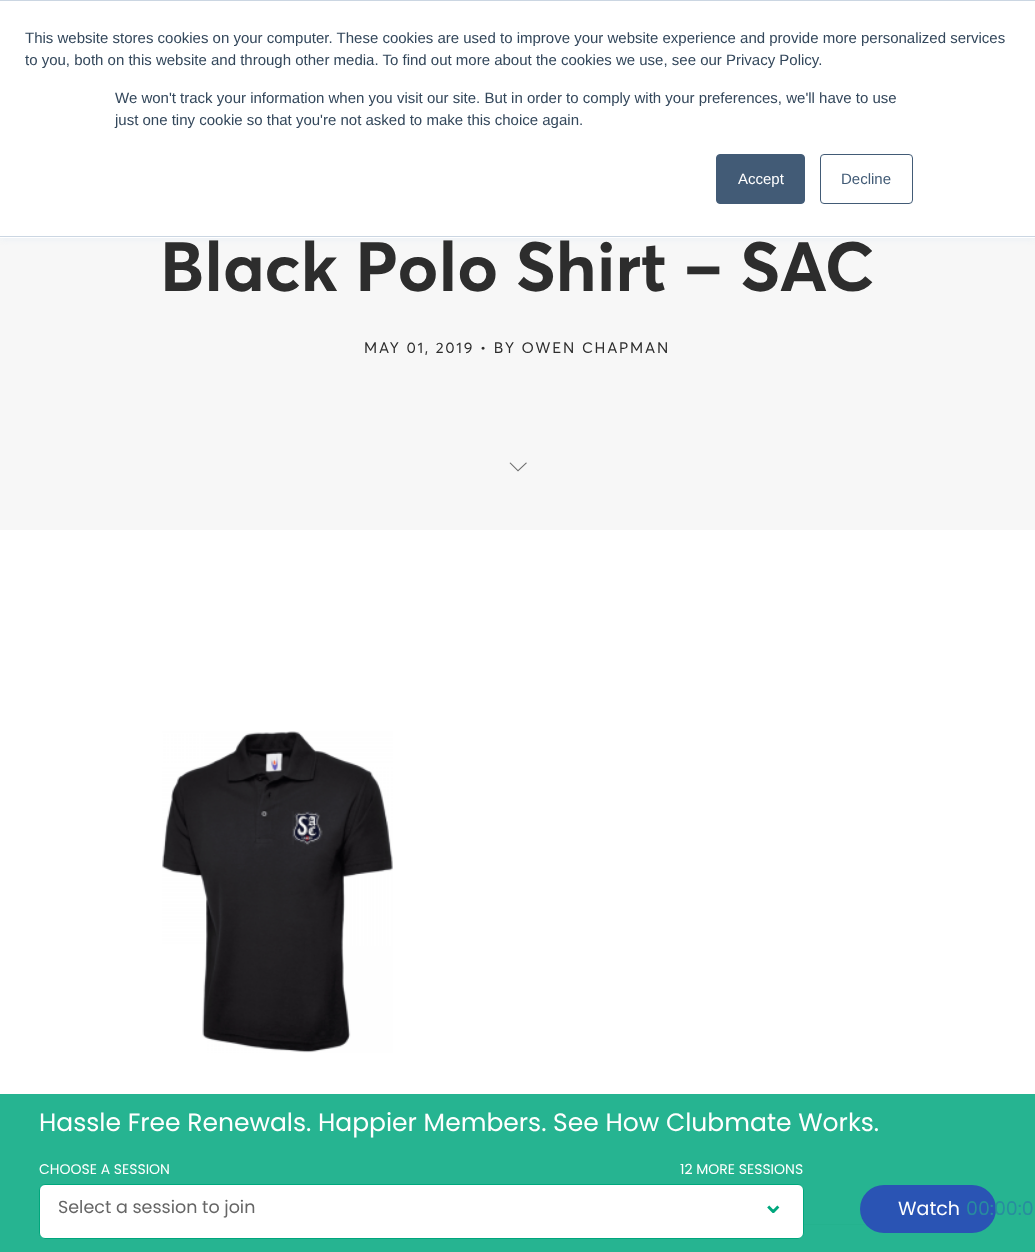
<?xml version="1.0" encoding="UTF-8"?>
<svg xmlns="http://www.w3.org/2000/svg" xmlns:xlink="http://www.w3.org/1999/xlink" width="1035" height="1252">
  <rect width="100%" height="100%" fill="#ffffff" />
  <rect y="1094" width="1035" height="158" fill="#26b491" />
  <rect y="238" width="1035" height="292" fill="#f7f7f7" />
  <rect y="1" width="1035" height="238" fill="#eaf0f6" filter="blur(3px)" />
  <rect y="1" width="1035" height="237" fill="#ffffff" />
  <rect width="1035" height="1" fill="#cbd6e2" />
  <rect y="236" width="1035" height="1" fill="#cbd6e2" />
  <rect x="716.5" y="154.5" width="88" height="49" rx="3.5" fill="#425b76" stroke="#425b76" />
  <rect x="820.5" y="154.5" width="92" height="49" rx="3.5" fill="none" stroke="#425b76" />
  <path d="M 527 463 l -1 -0.5 l -8 7.5 l -7.5 -7.5 l -1 0.5 l 8.5 8.5 z" fill="#6d6d6d" />
  <image x="162" y="731" width="231" height="322" xlink:href="image1.png" />
  <rect x="804" y="1224" width="63" height="1" fill="#24b28e" />
  <rect x="39.5" y="1184.5" width="764" height="54" rx="5.5" fill="#ffffff" stroke="#00a77d" />
  <rect x="860" y="1185" width="136" height="48" rx="24" fill="#2a54b4" />
  <text x="25" y="43" style="font-family: Liberation Sans; font-size: 15px; fill: #33475b">This website stores cookies on your computer. These cookies are used to improve your website experience and provide more personalized services</text>
  <text x="25" y="65" style="font-family: Liberation Sans; font-size: 15px; fill: #33475b">to you, both on this website and through other media. To find out more about the cookies we use, see our Privacy Policy.</text>
  <text x="115" y="103" style="font-family: Liberation Sans; font-size: 15px; fill: #33475b">We won't track your information when you visit our site. But in order to comply with your preferences, we'll have to use</text>
  <text x="115" y="125" style="font-family: Liberation Sans; font-size: 15px; fill: #33475b">just one tiny cookie so that you're not asked to make this choice again.</text>
  <text x="738" y="184" style="font-family: Liberation Sans; font-size: 15px; fill: #ffffff">Accept</text>
  <text x="841" y="184" style="font-family: Liberation Sans; font-size: 15px; fill: #425b76">Decline</text>
  <text x="160" y="291" style="font-family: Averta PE; font-size: 68.75px; font-weight: bold; fill: #2d2d2d">Black Polo Shirt – SAC</text>
  <text x="364" y="353" style="font-family: Averta PE; font-size: 15px; letter-spacing: 1.8px; fill: #2d2d2d">MAY 01, 2019 • BY OWEN CHAPMAN</text>
  <text x="39" y="1131" style="font-family: Poppins; font-size: 25px; fill: #ffffff">Hassle Free Renewals. Happier Members. See How Clubmate Works.</text>
  <text x="39" y="1174" style="font-family: Poppins; font-size: 14px; fill: #ffffff">CHOOSE A SESSION</text>
  <text x="680" y="1174" style="font-family: Poppins; font-size: 14px; fill: #ffffff">12 MORE SESSIONS</text>
  <text x="58" y="1213" style="font-family: Poppins; font-size: 17.5px; fill: #666666">Select a session to join</text>
  <text x="762" y="1213" style="font-family: DejaVu Sans; font-size: 26px; font-weight: bold; letter-spacing: 7px; fill: #00a77d">⌄</text>
  <text x="898" y="1215" style="font-family: Poppins; font-size: 19px; fill: #ffffff">Watch</text>
  <text x="966" y="1215" style="font-family: Poppins; font-size: 19px; fill: #288c9f">00:00:0</text>
</svg>
